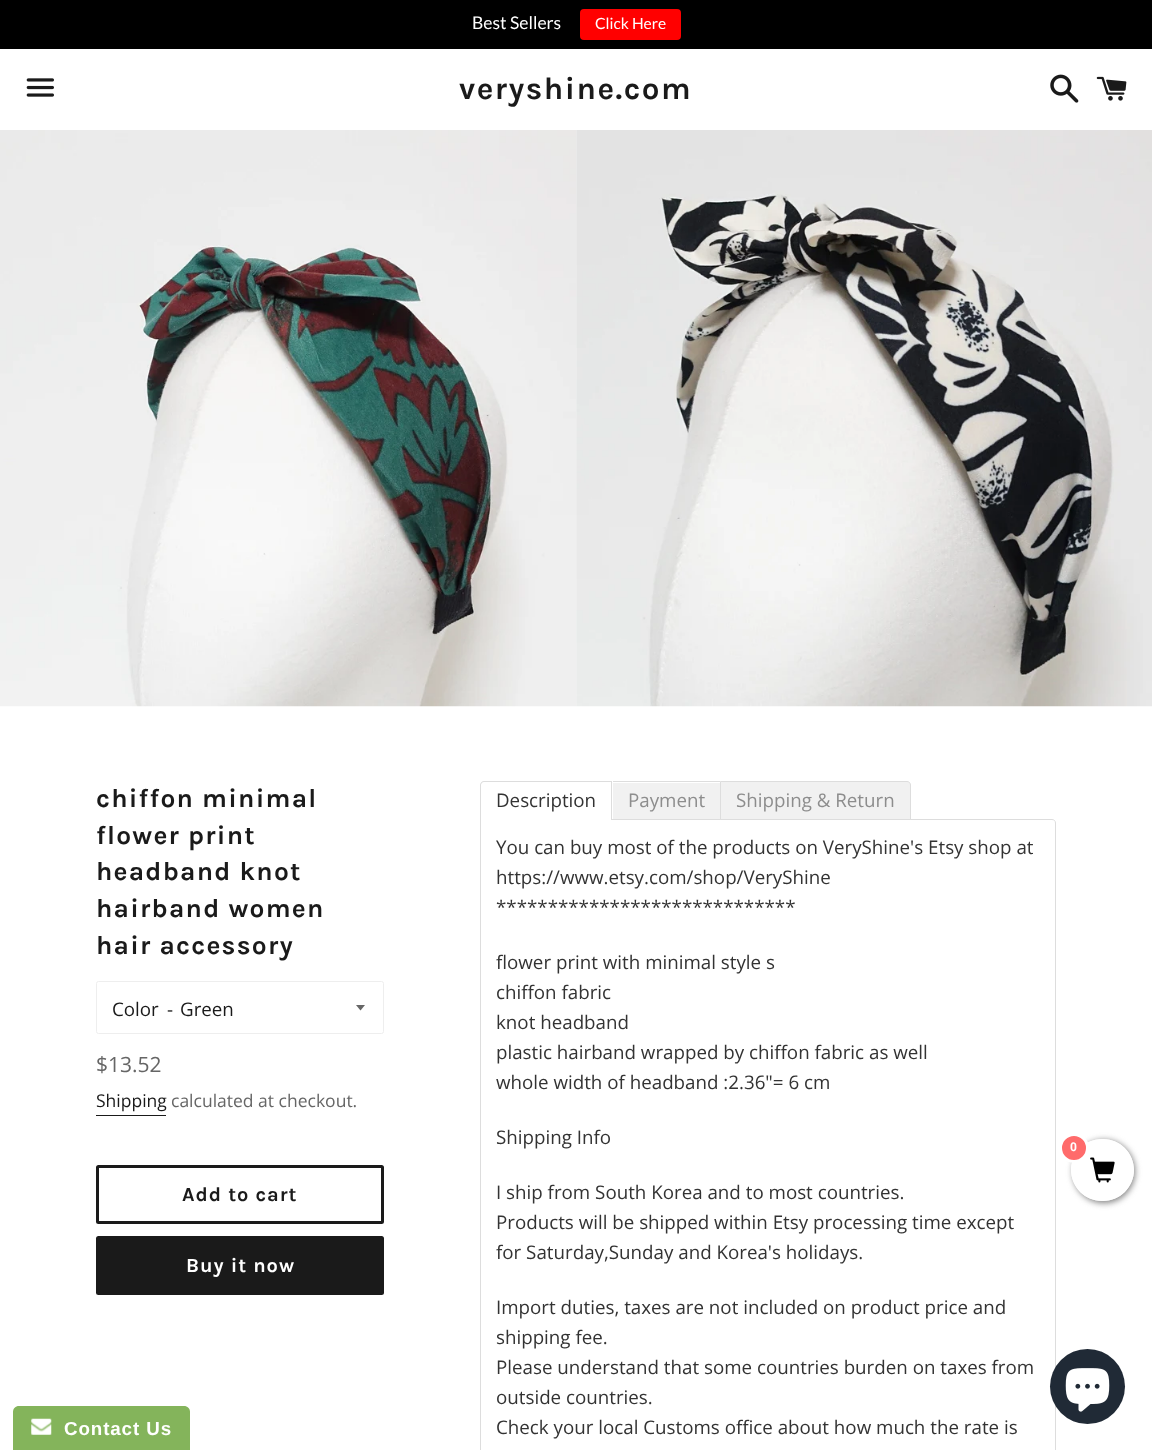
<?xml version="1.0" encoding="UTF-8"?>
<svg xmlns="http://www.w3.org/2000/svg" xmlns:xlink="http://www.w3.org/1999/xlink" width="1152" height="1450">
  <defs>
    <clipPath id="clip1"><path d="M 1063 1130 h 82 v 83 h -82 z m 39 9 h 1 c 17 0 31 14 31 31 c 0 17 -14 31 -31 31 h -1 c -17 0 -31 -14 -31 -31 c 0 -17 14 -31 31 -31 z" clip-rule="evenodd" /></clipPath>
  </defs>
  <rect width="100%" height="100%" fill="#ffffff" />
  <rect width="1152" height="49" fill="#000000" />
  <rect x="580" y="9" width="101" height="31" rx="4" fill="#ff0000" />
  <image x="26" y="78" width="28" height="19" xlink:href="image1.png" />
  <image x="1050" y="74" width="29" height="29" xlink:href="image2.png" />
  <image x="1096" y="76" width="31" height="25" xlink:href="image3.png" />
  <image x="0" y="130" width="577" height="577" xlink:href="image4.png" />
  <image x="576" y="130" width="576" height="577" xlink:href="image5.png" />
  <rect x="96.5" y="981.5" width="287" height="52" rx="2" fill="none" stroke="#eeeeee" />
  <path d="M 356 1005 l 4.5 5.5 l 4.5 -5.5 z" fill="#666666" />
  <rect x="96" y="1115" width="70" height="1" fill="#1a1a1a" />
  <rect x="97.5" y="1166.5" width="285" height="56" rx="1" fill="none" stroke="#1a1a1a" stroke-width="3" />
  <rect x="96" y="1236" width="288" height="59" rx="2.5" fill="#1a1a1a" />
  <path d="M 480.5 819.5 h 571.5 c 2 0 3.5 1.5 3.5 3.5 v 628 c 0 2 -1.5 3.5 -3.5 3.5 h -568 c -2 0 -3.5 -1.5 -3.5 -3.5 z" fill="none" stroke="#dddddd" />
  <path d="M 483.5 783 h 127.5 v 37 h -130 v -34.5 c 0 -1.5 1 -2.5 2.5 -2.5 z" fill="#ffffff" />
  <path d="M 484 781 h 128 v 39 h -132 v -35 c 0 -2 2 -4 4 -4 z m 0 1 h 127 v 38 h -130 v -35 c 0 -1 1 -3 3 -3 z" fill="#dddddd" fill-rule="evenodd" />
  <rect x="613" y="783" width="107" height="36" fill="#f1f1f1" />
  <rect x="613" y="781" width="107" height="1" fill="#dddddd" />
  <path d="M 720.5 781.5 h 186.5 c 2 0 3.5 1.5 3.5 3.5 v 34.5 h -190 z" fill="#f1f1f1" stroke="#dddddd" />
  <g clip-path="url(#clip1)">
    <rect x="1073" y="1140" width="62" height="63" rx="31" fill="#808080" filter="blur(3px)" />
  </g>
  <rect x="1071" y="1139" width="63" height="62" rx="31" fill="#ffffff" fill-opacity="0.9" />
  <circle cx="1074" cy="1148" r="13.5" fill="#ff6b6b" stroke="#ffffff" stroke-width="3" />
  <image x="1090" y="1157" width="25" height="26" xlink:href="image6.png" />
  <circle cx="1087.5" cy="1386.5" r="37.5" fill="#202a36" />
  <image x="1065" y="1368" width="45" height="44" xlink:href="image7.png" />
  <path d="M 19 1406 h 165 c 3.5 0 6 2.5 6 6 v 38 h -177 v -38 c 0 -3.5 2.5 -6 6 -6 z" fill="#84b45b" />
  <image x="31" y="1418" width="21" height="17" xlink:href="image8.png" />
  <text x="472" y="29" style="font-family: Lato; font-size: 17.5px; fill: #ffffff">Best Sellers</text>
  <text x="595" y="29" style="font-family: Lato; font-size: 15.5px; fill: #ffffff">Click Here</text>
  <text x="459" y="99" style="font-family: Karla; font-size: 31.25px; font-weight: bold; letter-spacing: 1.5px; fill: #1a1a1a">veryshine.com</text>
  <text x="96" y="807" style="font-family: Karla; font-size: 26.25px; font-weight: bold; letter-spacing: 1.25px; fill: #1a1a1a">chiffon minimal</text>
  <text x="96" y="844" style="font-family: Karla; font-size: 26.25px; font-weight: bold; letter-spacing: 1.25px; fill: #1a1a1a">flower print</text>
  <text x="96" y="880" style="font-family: Karla; font-size: 26.25px; font-weight: bold; letter-spacing: 1.25px; fill: #1a1a1a">headband knot</text>
  <text x="96" y="917" style="font-family: Karla; font-size: 26.25px; font-weight: bold; letter-spacing: 1.25px; fill: #1a1a1a">hairband women</text>
  <text x="96" y="954" style="font-family: Karla; font-size: 26.25px; font-weight: bold; letter-spacing: 1.25px; fill: #1a1a1a">hair accessory</text>
  <text x="112" y="1016" style="font-family: Open Sans; font-size: 18.75px; fill: #1a1a1a">Color</text>
  <text x="167" y="1016" style="font-family: Open Sans; font-size: 18.75px; fill: #1a1a1a">-</text>
  <text x="180" y="1016" style="font-family: Open Sans; font-size: 18.75px; fill: #1a1a1a">Green</text>
  <text x="96" y="1072" style="font-family: Open Sans; font-size: 21px; fill: #666666">$13.52</text>
  <text x="96" y="1107" style="font-family: Open Sans; font-size: 17.5px; fill: #1a1a1a">Shipping</text>
  <text x="171" y="1107" style="font-family: Open Sans; font-size: 17.5px; fill: #666666">calculated at checkout.</text>
  <text x="182" y="1201" style="font-family: Karla; font-size: 20px; font-weight: bold; letter-spacing: 1px; fill: #1a1a1a">Add to cart</text>
  <text x="186" y="1272" style="font-family: Karla; font-size: 20px; font-weight: bold; letter-spacing: 1px; fill: #ffffff">Buy it now</text>
  <text x="496" y="807" style="font-family: Open Sans; font-size: 18.75px; fill: #333333">Description</text>
  <text x="628" y="807" style="font-family: Open Sans; font-size: 18.75px; fill: #8d8d8d">Payment</text>
  <text x="736" y="807" style="font-family: Open Sans; font-size: 18.75px; fill: #8d8d8d">Shipping &amp; Return</text>
  <text x="496" y="854" style="font-family: Open Sans; font-size: 18.75px; fill: #333333">You can buy most of the products on VeryShine's Etsy shop at</text>
  <text x="496" y="884" style="font-family: Open Sans; font-size: 18.75px; fill: #333333">https://www.etsy.com/shop/VeryShine</text>
  <text x="496" y="914" style="font-family: Open Sans; font-size: 18.75px; fill: #333333">*****************************</text>
  <text x="496" y="969" style="font-family: Open Sans; font-size: 18.75px; fill: #333333">flower print with minimal style s</text>
  <text x="496" y="999" style="font-family: Open Sans; font-size: 18.75px; fill: #333333">chiffon fabric</text>
  <text x="496" y="1029" style="font-family: Open Sans; font-size: 18.75px; fill: #333333">knot headband</text>
  <text x="496" y="1059" style="font-family: Open Sans; font-size: 18.75px; fill: #333333">plastic hairband wrapped by chiffon fabric as well</text>
  <text x="496" y="1089" style="font-family: Open Sans; font-size: 18.75px; fill: #333333">whole width of headband :2.36"= 6 cm</text>
  <text x="496" y="1144" style="font-family: Open Sans; font-size: 18.75px; fill: #333333">Shipping Info</text>
  <text x="496" y="1199" style="font-family: Open Sans; font-size: 18.75px; fill: #333333">I ship from South Korea and to most countries.</text>
  <text x="496" y="1229" style="font-family: Open Sans; font-size: 18.75px; fill: #333333">Products will be shipped within Etsy processing time except</text>
  <text x="496" y="1259" style="font-family: Open Sans; font-size: 18.75px; fill: #333333">for Saturday,Sunday and Korea's holidays.</text>
  <text x="496" y="1314" style="font-family: Open Sans; font-size: 18.75px; fill: #333333">Import duties, taxes are not included on product price and</text>
  <text x="496" y="1344" style="font-family: Open Sans; font-size: 18.75px; fill: #333333">shipping fee.</text>
  <text x="496" y="1374" style="font-family: Open Sans; font-size: 18.75px; fill: #333333">Please understand that some countries burden on taxes from</text>
  <text x="496" y="1404" style="font-family: Open Sans; font-size: 18.75px; fill: #333333">outside countries.</text>
  <text x="496" y="1434" style="font-family: Open Sans; font-size: 18.75px; fill: #333333">Check your local Customs office about how much the rate is</text>
  <text x="1070" y="1151" style="font-family: Roboto; font-size: 12px; font-weight: bold; fill: #ffffff">0</text>
  <text x="64" y="1435" style="font-family: Liberation Sans; font-size: 18.75px; font-weight: bold; letter-spacing: 0.9px; fill: #ffffff">Contact Us</text>
</svg>
